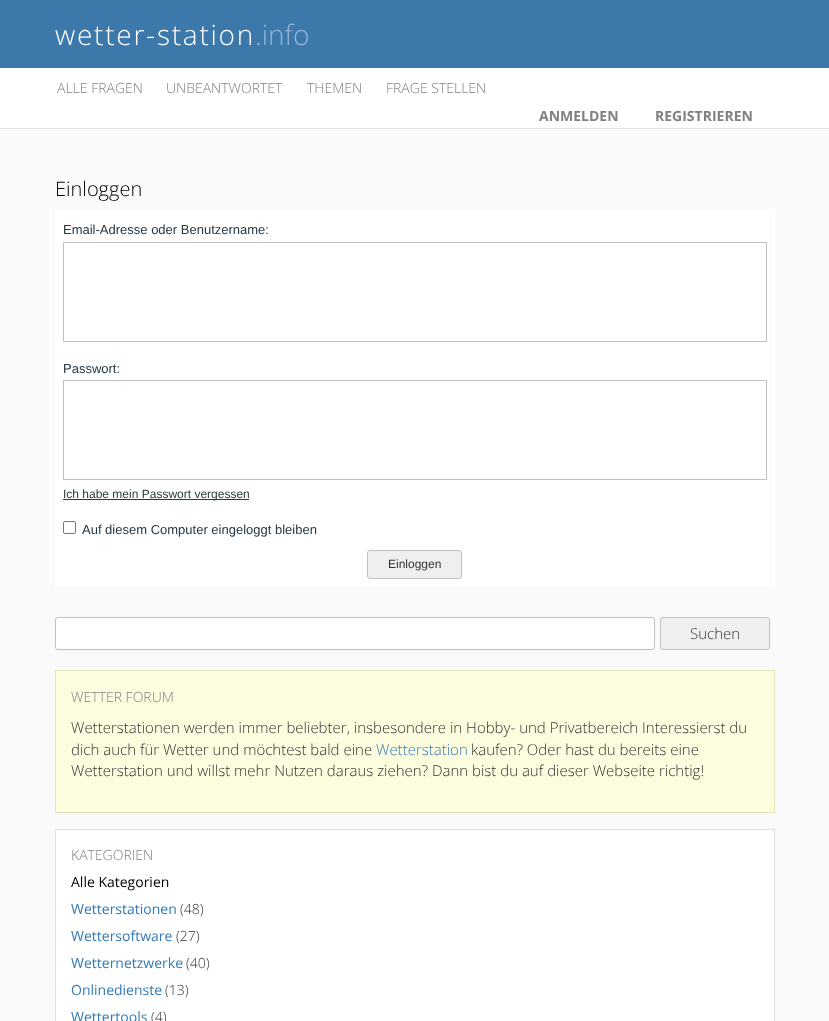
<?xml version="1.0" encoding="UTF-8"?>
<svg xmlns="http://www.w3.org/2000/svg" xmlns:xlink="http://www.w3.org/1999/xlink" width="829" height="1021">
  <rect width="100%" height="100%" fill="#fafafa" />
  <rect width="829" height="68" fill="#3d78ab" />
  <rect y="68" width="829" height="60" fill="#ffffff" />
  <rect y="128" width="829" height="1" fill="#e1e1e1" />
  <rect x="55" y="209" width="720" height="378" fill="#ffffff" />
  <rect x="63.5" y="242.5" width="703" height="99" fill="none" stroke="#c0c0c0" />
  <rect x="63.5" y="380.5" width="703" height="99" fill="none" stroke="#c0c0c0" />
  <rect x="63" y="499" width="186" height="1" fill="#293d39" />
  <rect x="63.5" y="521.5" width="12" height="12" rx="1.5" fill="none" stroke="#767676" />
  <rect x="367.5" y="550.5" width="94" height="28" rx="2.5" fill="#efefef" stroke="#c0c0c0" />
  <rect x="55.5" y="617.5" width="599" height="32" rx="2.5" fill="#ffffff" stroke="#c0c0c0" />
  <rect x="660.5" y="617.5" width="109" height="32" rx="2.5" fill="#efefef" stroke="#c0c0c0" />
  <rect x="55.5" y="670.5" width="719" height="142" fill="#fcfddf" stroke="#e4e5b8" />
  <rect x="55.5" y="829.5" width="719" height="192" fill="#ffffff" stroke="#e1e1e1" />
  <text x="55" y="45" style="font-family: Open Sans; font-size: 28px; font-weight: 300; letter-spacing: 1.75px; fill: #ffffff">wetter-station</text>
  <text x="255" y="45" style="font-family: Open Sans; font-size: 28px; font-weight: 300; fill: #94b4da">.info</text>
  <text x="57" y="93" style="font-family: Open Sans; font-size: 14px; font-weight: 300; fill: #808080">ALLE FRAGEN</text>
  <text x="166" y="93" style="font-family: Open Sans; font-size: 14px; font-weight: 300; fill: #808080">UNBEANTWORTET</text>
  <text x="307" y="93" style="font-family: Open Sans; font-size: 14px; font-weight: 300; fill: #808080">THEMEN</text>
  <text x="386" y="93" style="font-family: Open Sans; font-size: 14px; font-weight: 300; fill: #808080">FRAGE STELLEN</text>
  <text x="539" y="121" style="font-family: Open Sans; font-size: 14px; font-weight: bold; fill: #808080">ANMELDEN</text>
  <text x="655" y="121" style="font-family: Open Sans; font-size: 14px; font-weight: bold; fill: #808080">REGISTRIEREN</text>
  <text x="55" y="196" style="font-family: Open Sans; font-size: 20px; font-weight: 300; fill: #000000">Einloggen</text>
  <text x="63" y="234" style="font-family: Liberation Sans; font-size: 13px; fill: #253845">Email-Adresse oder Benutzername:</text>
  <text x="63" y="373" style="font-family: Liberation Sans; font-size: 13px; fill: #253845">Passwort:</text>
  <text x="63" y="498" style="font-family: Liberation Sans; font-size: 12px; fill: #293d39">Ich habe mein Passwort vergessen</text>
  <text x="82" y="534" style="font-family: Liberation Sans; font-size: 13px; fill: #253845">Auf diesem Computer eingeloggt bleiben</text>
  <text x="388" y="568" style="font-family: Liberation Sans; font-size: 12px; fill: #333333">Einloggen</text>
  <text x="690" y="639" style="font-family: Open Sans; font-size: 15px; font-weight: 300; fill: #333333">Suchen</text>
  <text x="71" y="702" style="font-family: Open Sans; font-size: 14px; font-weight: 300; fill: #808080">WETTER FORUM</text>
  <text x="71" y="733" style="font-family: Open Sans; font-size: 15px; font-weight: 300; fill: #333333">Wetterstationen werden immer beliebter, insbesondere in Hobby- und Privatbereich Interessierst du</text>
  <text x="71" y="755" style="font-family: Open Sans; font-size: 15px; font-weight: 300; fill: #333333">dich auch für Wetter und möchtest bald eine</text>
  <text x="376" y="755" style="font-family: Open Sans; font-size: 15px; font-weight: 300; fill: #337ab7">Wetterstation</text>
  <text x="471" y="755" style="font-family: Open Sans; font-size: 15px; font-weight: 300; fill: #333333">kaufen? Oder hast du bereits eine</text>
  <text x="71" y="776" style="font-family: Open Sans; font-size: 15px; font-weight: 300; fill: #333333">Wetterstation und willst mehr Nutzen daraus ziehen? Dann bist du auf dieser Webseite richtig!</text>
  <text x="71" y="860" style="font-family: Open Sans; font-size: 14px; font-weight: 300; fill: #808080">KATEGORIEN</text>
  <text x="71" y="887" style="font-family: Open Sans; font-size: 14px; fill: #000000">Alle Kategorien</text>
  <text x="71" y="914" style="font-family: Open Sans; font-size: 14px; fill: #337ab7">Wetterstationen</text>
  <text x="180" y="914" style="font-family: Open Sans; font-size: 14px; font-weight: 300; fill: #333333">(48)</text>
  <text x="71" y="941" style="font-family: Open Sans; font-size: 14px; fill: #337ab7">Wettersoftware</text>
  <text x="176" y="941" style="font-family: Open Sans; font-size: 14px; font-weight: 300; fill: #333333">(27)</text>
  <text x="71" y="968" style="font-family: Open Sans; font-size: 14px; fill: #337ab7">Wetternetzwerke</text>
  <text x="186" y="968" style="font-family: Open Sans; font-size: 14px; font-weight: 300; fill: #333333">(40)</text>
  <text x="71" y="995" style="font-family: Open Sans; font-size: 14px; fill: #337ab7">Onlinedienste</text>
  <text x="165" y="995" style="font-family: Open Sans; font-size: 14px; font-weight: 300; fill: #333333">(13)</text>
  <text x="71" y="1022" style="font-family: Open Sans; font-size: 14px; fill: #337ab7">Wettertools</text>
  <text x="151" y="1022" style="font-family: Open Sans; font-size: 14px; font-weight: 300; fill: #333333">(4)</text>
</svg>
